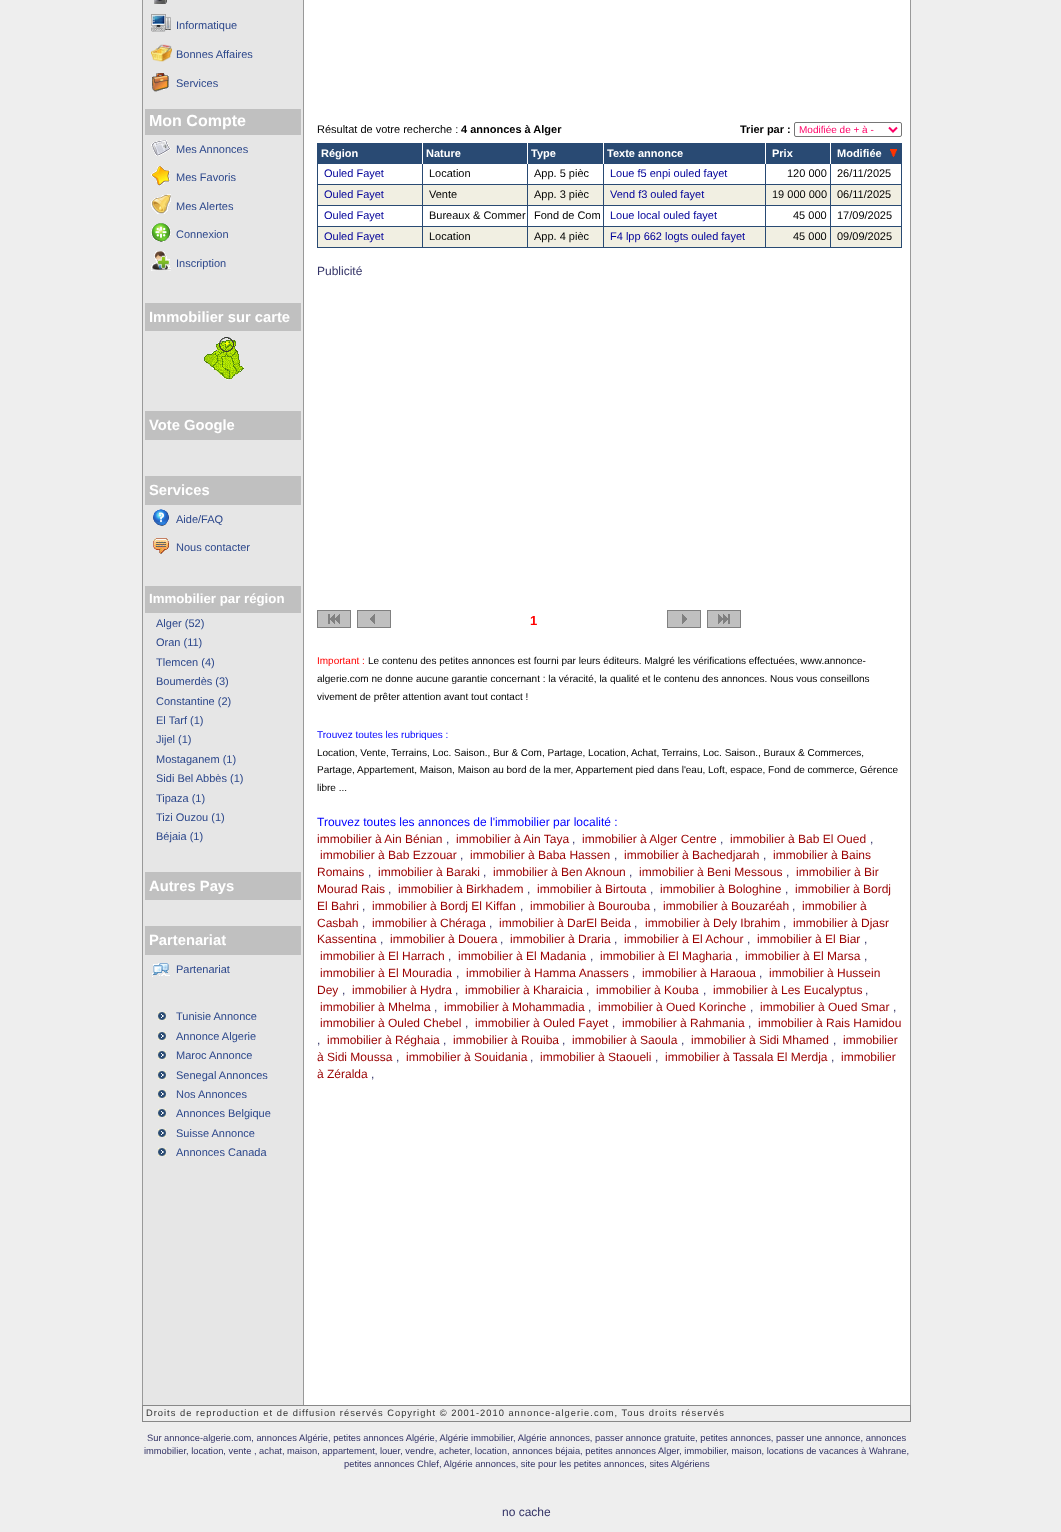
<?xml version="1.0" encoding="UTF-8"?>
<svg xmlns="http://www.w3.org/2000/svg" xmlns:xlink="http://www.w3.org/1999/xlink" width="1061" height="1532">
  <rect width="100%" height="100%" fill="#eeeeee" />
  <rect x="304" width="606" height="1405" fill="#ffffff" />
  <rect x="142" width="1" height="1405" fill="#999999" />
  <rect x="143" width="160" height="1405" fill="#e6e6e6" />
  <image x="154" y="0" width="13" height="4" xlink:href="image1.png" />
  <image x="151" y="14" width="20" height="18" xlink:href="image2.png" />
  <image x="151" y="44" width="21" height="18" xlink:href="image3.png" />
  <image x="152" y="73" width="17" height="19" xlink:href="image4.png" />
  <rect x="145" y="109" width="156" height="26" fill="#c0c0c0" />
  <image x="151" y="140" width="20" height="16" xlink:href="image5.png" />
  <image x="151" y="166" width="19" height="20" xlink:href="image6.png" />
  <image x="151" y="194" width="20" height="20" xlink:href="image7.png" />
  <image x="151" y="223" width="20" height="19" xlink:href="image8.png" />
  <image x="151" y="251" width="20" height="20" xlink:href="image9.png" />
  <rect x="145" y="303" width="156" height="28" fill="#c0c0c0" />
  <image x="204" y="337" width="40" height="43" xlink:href="image10.png" />
  <rect x="145" y="411" width="156" height="29" fill="#c0c0c0" />
  <rect x="145" y="476" width="156" height="29" fill="#c0c0c0" />
  <image x="153" y="509" width="16" height="17" xlink:href="image11.png" />
  <image x="153" y="538" width="16" height="16" xlink:href="image12.png" />
  <rect x="145" y="586" width="156" height="27" fill="#c0c0c0" />
  <rect x="145" y="872" width="156" height="28" fill="#c0c0c0" />
  <rect x="145" y="926" width="156" height="29" fill="#c0c0c0" />
  <image x="152" y="963" width="18" height="14" xlink:href="image13.png" />
  <image x="158" y="1012" width="8" height="8" xlink:href="image14.png" />
  <image x="158" y="1032" width="8" height="8" xlink:href="image14.png" />
  <image x="158" y="1051" width="8" height="8" xlink:href="image14.png" />
  <image x="158" y="1071" width="8" height="8" xlink:href="image14.png" />
  <image x="158" y="1090" width="8" height="8" xlink:href="image14.png" />
  <image x="158" y="1109" width="8" height="8" xlink:href="image14.png" />
  <image x="158" y="1129" width="8" height="8" xlink:href="image14.png" />
  <image x="158" y="1148" width="8" height="8" xlink:href="image14.png" />
  <rect x="303" width="1" height="1405" fill="#999999" />
  <rect x="794.5" y="122.5" width="107" height="14" rx="1.5" fill="none" stroke="#767676" />
  <path d="M 889 127.5 l 4 4 l 4 -4" fill="none" stroke="#ff0066" stroke-width="2" />
  <rect x="317" y="143" width="585" height="21" fill="#294a73" />
  <rect x="422" y="143" width="1" height="21" fill="#ffffff" />
  <rect x="527" y="143" width="1" height="21" fill="#ffffff" />
  <rect x="603" y="143" width="1" height="21" fill="#ffffff" />
  <rect x="765" y="143" width="1" height="21" fill="#ffffff" />
  <rect x="830" y="143" width="1" height="21" fill="#ffffff" />
  <image x="890" y="149" width="7" height="8" xlink:href="image15.png" />
  <rect x="317" y="164" width="1" height="20" fill="#294a73" />
  <rect x="422" y="164" width="1" height="20" fill="#294a73" />
  <rect x="527" y="164" width="1" height="20" fill="#294a73" />
  <rect x="603" y="164" width="1" height="20" fill="#294a73" />
  <rect x="765" y="164" width="1" height="20" fill="#294a73" />
  <rect x="830" y="164" width="1" height="20" fill="#294a73" />
  <rect x="901" y="164" width="1" height="20" fill="#294a73" />
  <rect x="317" y="184" width="585" height="1" fill="#294a73" />
  <rect x="318" y="185" width="583" height="20" fill="#f1efe2" />
  <rect x="317" y="185" width="1" height="20" fill="#294a73" />
  <rect x="422" y="185" width="1" height="20" fill="#294a73" />
  <rect x="527" y="185" width="1" height="20" fill="#294a73" />
  <rect x="603" y="185" width="1" height="20" fill="#294a73" />
  <rect x="765" y="185" width="1" height="20" fill="#294a73" />
  <rect x="830" y="185" width="1" height="20" fill="#294a73" />
  <rect x="901" y="185" width="1" height="20" fill="#294a73" />
  <rect x="317" y="205" width="585" height="1" fill="#294a73" />
  <rect x="317" y="206" width="1" height="20" fill="#294a73" />
  <rect x="422" y="206" width="1" height="20" fill="#294a73" />
  <rect x="527" y="206" width="1" height="20" fill="#294a73" />
  <rect x="603" y="206" width="1" height="20" fill="#294a73" />
  <rect x="765" y="206" width="1" height="20" fill="#294a73" />
  <rect x="830" y="206" width="1" height="20" fill="#294a73" />
  <rect x="901" y="206" width="1" height="20" fill="#294a73" />
  <rect x="317" y="226" width="585" height="1" fill="#294a73" />
  <rect x="318" y="227" width="583" height="20" fill="#f1efe2" />
  <rect x="317" y="227" width="1" height="20" fill="#294a73" />
  <rect x="422" y="227" width="1" height="20" fill="#294a73" />
  <rect x="527" y="227" width="1" height="20" fill="#294a73" />
  <rect x="603" y="227" width="1" height="20" fill="#294a73" />
  <rect x="765" y="227" width="1" height="20" fill="#294a73" />
  <rect x="830" y="227" width="1" height="20" fill="#294a73" />
  <rect x="901" y="227" width="1" height="20" fill="#294a73" />
  <rect x="317" y="247" width="585" height="1" fill="#294a73" />
  <image x="317" y="610" width="34" height="18" xlink:href="image16.png" />
  <image x="357" y="610" width="34" height="18" xlink:href="image17.png" />
  <image x="667" y="610" width="34" height="18" xlink:href="image18.png" />
  <image x="707" y="610" width="34" height="18" xlink:href="image19.png" />
  <rect x="910" width="1" height="1405" fill="#999999" />
  <rect x="142.5" y="1405.5" width="768" height="16" fill="none" stroke="#888888" />
  <text x="176" y="29" style="font-family: Liberation Sans; font-size: 11px; fill: #2c478b">Informatique</text>
  <text x="176" y="58" style="font-family: Liberation Sans; font-size: 11px; fill: #2c478b">Bonnes Affaires</text>
  <text x="176" y="87" style="font-family: Liberation Sans; font-size: 11px; fill: #2c478b">Services</text>
  <text x="149" y="126" style="font-family: Liberation Sans; font-size: 16px; font-weight: bold; fill: #ffffff">Mon Compte</text>
  <text x="176" y="153" style="font-family: Liberation Sans; font-size: 11px; fill: #2c478b">Mes Annonces</text>
  <text x="176" y="181" style="font-family: Liberation Sans; font-size: 11px; fill: #2c478b">Mes Favoris</text>
  <text x="176" y="210" style="font-family: Liberation Sans; font-size: 11px; fill: #2c478b">Mes Alertes</text>
  <text x="176" y="238" style="font-family: Liberation Sans; font-size: 11px; fill: #2c478b">Connexion</text>
  <text x="176" y="267" style="font-family: Liberation Sans; font-size: 11px; fill: #2c478b">Inscription</text>
  <text x="149" y="322" style="font-family: Liberation Sans; font-size: 14.75px; font-weight: bold; fill: #ffffff">Immobilier sur carte</text>
  <text x="149" y="430" style="font-family: Liberation Sans; font-size: 14.75px; font-weight: bold; fill: #ffffff">Vote Google</text>
  <text x="149" y="495" style="font-family: Liberation Sans; font-size: 14.75px; font-weight: bold; fill: #ffffff">Services</text>
  <text x="176" y="523" style="font-family: Liberation Sans; font-size: 11px; fill: #2c478b">Aide/FAQ</text>
  <text x="176" y="551" style="font-family: Liberation Sans; font-size: 11px; fill: #2c478b">Nous contacter</text>
  <text x="149" y="603" style="font-family: Liberation Sans; font-size: 13.25px; font-weight: bold; fill: #ffffff">Immobilier par région</text>
  <text x="156" y="627" style="font-family: Liberation Sans; font-size: 11px; fill: #2c478b">Alger (52)</text>
  <text x="156" y="646" style="font-family: Liberation Sans; font-size: 11px; fill: #2c478b">Oran (11)</text>
  <text x="156" y="666" style="font-family: Liberation Sans; font-size: 11px; fill: #2c478b">Tlemcen (4)</text>
  <text x="156" y="685" style="font-family: Liberation Sans; font-size: 11px; fill: #2c478b">Boumerdès (3)</text>
  <text x="156" y="705" style="font-family: Liberation Sans; font-size: 11px; fill: #2c478b">Constantine (2)</text>
  <text x="156" y="724" style="font-family: Liberation Sans; font-size: 11px; fill: #2c478b">El Tarf (1)</text>
  <text x="156" y="743" style="font-family: Liberation Sans; font-size: 11px; fill: #2c478b">Jijel (1)</text>
  <text x="156" y="763" style="font-family: Liberation Sans; font-size: 11px; fill: #2c478b">Mostaganem (1)</text>
  <text x="156" y="782" style="font-family: Liberation Sans; font-size: 11px; fill: #2c478b">Sidi Bel Abbès (1)</text>
  <text x="156" y="802" style="font-family: Liberation Sans; font-size: 11px; fill: #2c478b">Tipaza (1)</text>
  <text x="156" y="821" style="font-family: Liberation Sans; font-size: 11px; fill: #2c478b">Tizi Ouzou (1)</text>
  <text x="156" y="840" style="font-family: Liberation Sans; font-size: 11px; fill: #2c478b">Béjaia (1)</text>
  <text x="149" y="891" style="font-family: Liberation Sans; font-size: 14.75px; font-weight: bold; fill: #ffffff">Autres Pays</text>
  <text x="149" y="945" style="font-family: Liberation Sans; font-size: 14.75px; font-weight: bold; fill: #ffffff">Partenariat</text>
  <text x="176" y="973" style="font-family: Liberation Sans; font-size: 11px; fill: #2c478b">Partenariat</text>
  <text x="176" y="1020" style="font-family: Liberation Sans; font-size: 11px; fill: #2c478b">Tunisie Annonce</text>
  <text x="176" y="1040" style="font-family: Liberation Sans; font-size: 11px; fill: #2c478b">Annonce Algerie</text>
  <text x="176" y="1059" style="font-family: Liberation Sans; font-size: 11px; fill: #2c478b">Maroc Annonce</text>
  <text x="176" y="1079" style="font-family: Liberation Sans; font-size: 11px; fill: #2c478b">Senegal Annonces</text>
  <text x="176" y="1098" style="font-family: Liberation Sans; font-size: 11px; fill: #2c478b">Nos Annonces</text>
  <text x="176" y="1117" style="font-family: Liberation Sans; font-size: 11px; fill: #2c478b">Annonces Belgique</text>
  <text x="176" y="1137" style="font-family: Liberation Sans; font-size: 11px; fill: #2c478b">Suisse Annonce</text>
  <text x="176" y="1156" style="font-family: Liberation Sans; font-size: 11px; fill: #2c478b">Annonces Canada</text>
  <text x="317" y="133" style="font-family: Liberation Sans; font-size: 11px; fill: #000000">Résultat de votre recherche :</text>
  <text x="461" y="133" style="font-family: Liberation Sans; font-size: 11px; font-weight: bold; fill: #000000">4 annonces à Alger</text>
  <text x="740" y="133" style="font-family: Liberation Sans; font-size: 11px; font-weight: bold; fill: #000000">Trier par :</text>
  <text x="799" y="133" style="font-family: Liberation Sans; font-size: 10px; fill: #ff0066">Modifiée de + à -</text>
  <text x="321" y="157" style="font-family: Liberation Sans; font-size: 11px; font-weight: bold; fill: #ffffff">Région</text>
  <text x="426" y="157" style="font-family: Liberation Sans; font-size: 11px; font-weight: bold; fill: #ffffff">Nature</text>
  <text x="531" y="157" style="font-family: Liberation Sans; font-size: 11px; font-weight: bold; fill: #ffffff">Type</text>
  <text x="607" y="157" style="font-family: Liberation Sans; font-size: 11px; font-weight: bold; fill: #ffffff">Texte annonce</text>
  <text x="772" y="157" style="font-family: Liberation Sans; font-size: 11px; font-weight: bold; fill: #ffffff">Prix</text>
  <text x="837" y="157" style="font-family: Liberation Sans; font-size: 11px; font-weight: bold; fill: #ffffff">Modifiée</text>
  <text x="324" y="177" style="font-family: Liberation Sans; font-size: 11px; fill: #000099">Ouled Fayet</text>
  <text x="429" y="177" style="font-family: Liberation Sans; font-size: 11px; fill: #000000">Location</text>
  <text x="534" y="177" style="font-family: Liberation Sans; font-size: 11px; fill: #000000">App. 5 pièc</text>
  <text x="610" y="177" style="font-family: Liberation Sans; font-size: 11px; fill: #000099">Loue f5 enpi ouled fayet</text>
  <text x="787" y="177" style="font-family: Liberation Sans; font-size: 11px; fill: #000000">120 000</text>
  <text x="837" y="177" style="font-family: Liberation Sans; font-size: 11px; fill: #000000">26/11/2025</text>
  <text x="324" y="198" style="font-family: Liberation Sans; font-size: 11px; fill: #000099">Ouled Fayet</text>
  <text x="429" y="198" style="font-family: Liberation Sans; font-size: 11px; fill: #000000">Vente</text>
  <text x="534" y="198" style="font-family: Liberation Sans; font-size: 11px; fill: #000000">App. 3 pièc</text>
  <text x="610" y="198" style="font-family: Liberation Sans; font-size: 11px; fill: #000099">Vend f3 ouled fayet</text>
  <text x="772" y="198" style="font-family: Liberation Sans; font-size: 11px; fill: #000000">19 000 000</text>
  <text x="837" y="198" style="font-family: Liberation Sans; font-size: 11px; fill: #000000">06/11/2025</text>
  <text x="324" y="219" style="font-family: Liberation Sans; font-size: 11px; fill: #000099">Ouled Fayet</text>
  <text x="429" y="219" style="font-family: Liberation Sans; font-size: 11px; fill: #000000">Bureaux &amp; Commer</text>
  <text x="534" y="219" style="font-family: Liberation Sans; font-size: 11px; fill: #000000">Fond de Com</text>
  <text x="610" y="219" style="font-family: Liberation Sans; font-size: 11px; fill: #000099">Loue local ouled fayet</text>
  <text x="793" y="219" style="font-family: Liberation Sans; font-size: 11px; fill: #000000">45 000</text>
  <text x="837" y="219" style="font-family: Liberation Sans; font-size: 11px; fill: #000000">17/09/2025</text>
  <text x="324" y="240" style="font-family: Liberation Sans; font-size: 11px; fill: #000099">Ouled Fayet</text>
  <text x="429" y="240" style="font-family: Liberation Sans; font-size: 11px; fill: #000000">Location</text>
  <text x="534" y="240" style="font-family: Liberation Sans; font-size: 11px; fill: #000000">App. 4 pièc</text>
  <text x="610" y="240" style="font-family: Liberation Sans; font-size: 11px; fill: #000099">F4 lpp 662 logts ouled fayet</text>
  <text x="793" y="240" style="font-family: Liberation Sans; font-size: 11px; fill: #000000">45 000</text>
  <text x="837" y="240" style="font-family: Liberation Sans; font-size: 11px; fill: #000000">09/09/2025</text>
  <text x="317" y="275" style="font-family: Liberation Sans; font-size: 12px; fill: #333366">Publicité</text>
  <text x="530" y="625" style="font-family: Liberation Sans; font-size: 13px; font-weight: bold; fill: #ff0000">1</text>
  <text x="317" y="664" style="font-family: Liberation Sans; font-size: 10px; fill: #ff0000">Important :</text>
  <text x="368" y="664" style="font-family: Liberation Sans; font-size: 10px; fill: #000000">Le contenu des petites annonces est fourni par leurs éditeurs. Malgré les vérifications effectuées, www.annonce-</text>
  <text x="317" y="682" style="font-family: Liberation Sans; font-size: 10px; fill: #000000">algerie.com ne donne aucune garantie concernant : la véracité, la qualité et le contenu des annonces. Nous vous conseillons</text>
  <text x="317" y="700" style="font-family: Liberation Sans; font-size: 10px; fill: #000000">vivement de prêter attention avant tout contact !</text>
  <text x="317" y="738" style="font-family: Liberation Sans; font-size: 10px; fill: #0000ff">Trouvez toutes les rubriques :</text>
  <text x="317" y="756" style="font-family: Liberation Sans; font-size: 10px; fill: #000000">Location, Vente, Terrains, Loc. Saison., Bur &amp; Com, Partage, Location, Achat, Terrains, Loc. Saison., Buraux &amp; Commerces,</text>
  <text x="317" y="773" style="font-family: Liberation Sans; font-size: 10px; fill: #000000">Partage, Appartement, Maison, Maison au bord de la mer, Appartement pied dans l'eau, Loft, espace, Fond de commerce, Gérence</text>
  <text x="317" y="791" style="font-family: Liberation Sans; font-size: 10px; fill: #000000">libre ...</text>
  <text x="317" y="826" style="font-family: Liberation Sans; font-size: 12px; fill: #0000ff">Trouvez toutes les annonces de l'immobilier par localité :</text>
  <text x="317" y="843" style="font-family: Liberation Sans; font-size: 12px; fill: #990000">immobilier à Ain Bénian</text>
  <text x="446" y="843" style="font-family: Liberation Sans; font-size: 12px; fill: #333366">,</text>
  <text x="456" y="843" style="font-family: Liberation Sans; font-size: 12px; fill: #990000">immobilier à Ain Taya</text>
  <text x="572" y="843" style="font-family: Liberation Sans; font-size: 12px; fill: #333366">,</text>
  <text x="582" y="843" style="font-family: Liberation Sans; font-size: 12px; fill: #990000">immobilier à Alger Centre</text>
  <text x="720" y="843" style="font-family: Liberation Sans; font-size: 12px; fill: #333366">,</text>
  <text x="730" y="843" style="font-family: Liberation Sans; font-size: 12px; fill: #990000">immobilier à Bab El Oued</text>
  <text x="870" y="843" style="font-family: Liberation Sans; font-size: 12px; fill: #333366">,</text>
  <text x="320" y="859" style="font-family: Liberation Sans; font-size: 12px; fill: #990000">immobilier à Bab Ezzouar</text>
  <text x="460" y="859" style="font-family: Liberation Sans; font-size: 12px; fill: #333366">,</text>
  <text x="470" y="859" style="font-family: Liberation Sans; font-size: 12px; fill: #990000">immobilier à Baba Hassen</text>
  <text x="614" y="859" style="font-family: Liberation Sans; font-size: 12px; fill: #333366">,</text>
  <text x="624" y="859" style="font-family: Liberation Sans; font-size: 12px; fill: #990000">immobilier à Bachedjarah</text>
  <text x="763" y="859" style="font-family: Liberation Sans; font-size: 12px; fill: #333366">,</text>
  <text x="773" y="859" style="font-family: Liberation Sans; font-size: 12px; fill: #990000">immobilier à Bains</text>
  <text x="317" y="876" style="font-family: Liberation Sans; font-size: 12px; fill: #990000">Romains</text>
  <text x="368" y="876" style="font-family: Liberation Sans; font-size: 12px; fill: #333366">,</text>
  <text x="378" y="876" style="font-family: Liberation Sans; font-size: 12px; fill: #990000">immobilier à Baraki</text>
  <text x="483" y="876" style="font-family: Liberation Sans; font-size: 12px; fill: #333366">,</text>
  <text x="493" y="876" style="font-family: Liberation Sans; font-size: 12px; fill: #990000">immobilier à Ben Aknoun</text>
  <text x="629" y="876" style="font-family: Liberation Sans; font-size: 12px; fill: #333366">,</text>
  <text x="639" y="876" style="font-family: Liberation Sans; font-size: 12px; fill: #990000">immobilier à Beni Messous</text>
  <text x="786" y="876" style="font-family: Liberation Sans; font-size: 12px; fill: #333366">,</text>
  <text x="796" y="876" style="font-family: Liberation Sans; font-size: 12px; fill: #990000">immobilier à Bir</text>
  <text x="317" y="893" style="font-family: Liberation Sans; font-size: 12px; fill: #990000">Mourad Rais</text>
  <text x="388" y="893" style="font-family: Liberation Sans; font-size: 12px; fill: #333366">,</text>
  <text x="398" y="893" style="font-family: Liberation Sans; font-size: 12px; fill: #990000">immobilier à Birkhadem</text>
  <text x="527" y="893" style="font-family: Liberation Sans; font-size: 12px; fill: #333366">,</text>
  <text x="537" y="893" style="font-family: Liberation Sans; font-size: 12px; fill: #990000">immobilier à Birtouta</text>
  <text x="650" y="893" style="font-family: Liberation Sans; font-size: 12px; fill: #333366">,</text>
  <text x="660" y="893" style="font-family: Liberation Sans; font-size: 12px; fill: #990000">immobilier à Bologhine</text>
  <text x="785" y="893" style="font-family: Liberation Sans; font-size: 12px; fill: #333366">,</text>
  <text x="795" y="893" style="font-family: Liberation Sans; font-size: 12px; fill: #990000">immobilier à Bordj</text>
  <text x="317" y="910" style="font-family: Liberation Sans; font-size: 12px; fill: #990000">El Bahri</text>
  <text x="362" y="910" style="font-family: Liberation Sans; font-size: 12px; fill: #333366">,</text>
  <text x="372" y="910" style="font-family: Liberation Sans; font-size: 12px; fill: #990000">immobilier à Bordj El Kiffan</text>
  <text x="520" y="910" style="font-family: Liberation Sans; font-size: 12px; fill: #333366">,</text>
  <text x="530" y="910" style="font-family: Liberation Sans; font-size: 12px; fill: #990000">immobilier à Bourouba</text>
  <text x="653" y="910" style="font-family: Liberation Sans; font-size: 12px; fill: #333366">,</text>
  <text x="663" y="910" style="font-family: Liberation Sans; font-size: 12px; fill: #990000">immobilier à Bouzaréah</text>
  <text x="792" y="910" style="font-family: Liberation Sans; font-size: 12px; fill: #333366">,</text>
  <text x="802" y="910" style="font-family: Liberation Sans; font-size: 12px; fill: #990000">immobilier à</text>
  <text x="317" y="927" style="font-family: Liberation Sans; font-size: 12px; fill: #990000">Casbah</text>
  <text x="362" y="927" style="font-family: Liberation Sans; font-size: 12px; fill: #333366">,</text>
  <text x="372" y="927" style="font-family: Liberation Sans; font-size: 12px; fill: #990000">immobilier à Chéraga</text>
  <text x="489" y="927" style="font-family: Liberation Sans; font-size: 12px; fill: #333366">,</text>
  <text x="499" y="927" style="font-family: Liberation Sans; font-size: 12px; fill: #990000">immobilier à DarEl Beida</text>
  <text x="634" y="927" style="font-family: Liberation Sans; font-size: 12px; fill: #333366">,</text>
  <text x="645" y="927" style="font-family: Liberation Sans; font-size: 12px; fill: #990000">immobilier à Dely Ibrahim</text>
  <text x="783" y="927" style="font-family: Liberation Sans; font-size: 12px; fill: #333366">,</text>
  <text x="793" y="927" style="font-family: Liberation Sans; font-size: 12px; fill: #990000">immobilier à Djasr</text>
  <text x="317" y="943" style="font-family: Liberation Sans; font-size: 12px; fill: #990000">Kassentina</text>
  <text x="380" y="943" style="font-family: Liberation Sans; font-size: 12px; fill: #333366">,</text>
  <text x="390" y="943" style="font-family: Liberation Sans; font-size: 12px; fill: #990000">immobilier à Douera</text>
  <text x="500" y="943" style="font-family: Liberation Sans; font-size: 12px; fill: #333366">,</text>
  <text x="510" y="943" style="font-family: Liberation Sans; font-size: 12px; fill: #990000">immobilier à Draria</text>
  <text x="614" y="943" style="font-family: Liberation Sans; font-size: 12px; fill: #333366">,</text>
  <text x="624" y="943" style="font-family: Liberation Sans; font-size: 12px; fill: #990000">immobilier à El Achour</text>
  <text x="747" y="943" style="font-family: Liberation Sans; font-size: 12px; fill: #333366">,</text>
  <text x="757" y="943" style="font-family: Liberation Sans; font-size: 12px; fill: #990000">immobilier à El Biar</text>
  <text x="864" y="943" style="font-family: Liberation Sans; font-size: 12px; fill: #333366">,</text>
  <text x="320" y="960" style="font-family: Liberation Sans; font-size: 12px; fill: #990000">immobilier à El Harrach</text>
  <text x="448" y="960" style="font-family: Liberation Sans; font-size: 12px; fill: #333366">,</text>
  <text x="458" y="960" style="font-family: Liberation Sans; font-size: 12px; fill: #990000">immobilier à El Madania</text>
  <text x="590" y="960" style="font-family: Liberation Sans; font-size: 12px; fill: #333366">,</text>
  <text x="600" y="960" style="font-family: Liberation Sans; font-size: 12px; fill: #990000">immobilier à El Magharia</text>
  <text x="735" y="960" style="font-family: Liberation Sans; font-size: 12px; fill: #333366">,</text>
  <text x="745" y="960" style="font-family: Liberation Sans; font-size: 12px; fill: #990000">immobilier à El Marsa</text>
  <text x="864" y="960" style="font-family: Liberation Sans; font-size: 12px; fill: #333366">,</text>
  <text x="320" y="977" style="font-family: Liberation Sans; font-size: 12px; fill: #990000">immobilier à El Mouradia</text>
  <text x="456" y="977" style="font-family: Liberation Sans; font-size: 12px; fill: #333366">,</text>
  <text x="466" y="977" style="font-family: Liberation Sans; font-size: 12px; fill: #990000">immobilier à Hamma Anassers</text>
  <text x="632" y="977" style="font-family: Liberation Sans; font-size: 12px; fill: #333366">,</text>
  <text x="642" y="977" style="font-family: Liberation Sans; font-size: 12px; fill: #990000">immobilier à Haraoua</text>
  <text x="759" y="977" style="font-family: Liberation Sans; font-size: 12px; fill: #333366">,</text>
  <text x="769" y="977" style="font-family: Liberation Sans; font-size: 12px; fill: #990000">immobilier à Hussein</text>
  <text x="317" y="994" style="font-family: Liberation Sans; font-size: 12px; fill: #990000">Dey</text>
  <text x="342" y="994" style="font-family: Liberation Sans; font-size: 12px; fill: #333366">,</text>
  <text x="352" y="994" style="font-family: Liberation Sans; font-size: 12px; fill: #990000">immobilier à Hydra</text>
  <text x="455" y="994" style="font-family: Liberation Sans; font-size: 12px; fill: #333366">,</text>
  <text x="465" y="994" style="font-family: Liberation Sans; font-size: 12px; fill: #990000">immobilier à Kharaicia</text>
  <text x="586" y="994" style="font-family: Liberation Sans; font-size: 12px; fill: #333366">,</text>
  <text x="596" y="994" style="font-family: Liberation Sans; font-size: 12px; fill: #990000">immobilier à Kouba</text>
  <text x="703" y="994" style="font-family: Liberation Sans; font-size: 12px; fill: #333366">,</text>
  <text x="713" y="994" style="font-family: Liberation Sans; font-size: 12px; fill: #990000">immobilier à Les Eucalyptus</text>
  <text x="865" y="994" style="font-family: Liberation Sans; font-size: 12px; fill: #333366">,</text>
  <text x="320" y="1011" style="font-family: Liberation Sans; font-size: 12px; fill: #990000">immobilier à Mhelma</text>
  <text x="434" y="1011" style="font-family: Liberation Sans; font-size: 12px; fill: #333366">,</text>
  <text x="444" y="1011" style="font-family: Liberation Sans; font-size: 12px; fill: #990000">immobilier à Mohammadia</text>
  <text x="588" y="1011" style="font-family: Liberation Sans; font-size: 12px; fill: #333366">,</text>
  <text x="598" y="1011" style="font-family: Liberation Sans; font-size: 12px; fill: #990000">immobilier à Oued Korinche</text>
  <text x="750" y="1011" style="font-family: Liberation Sans; font-size: 12px; fill: #333366">,</text>
  <text x="760" y="1011" style="font-family: Liberation Sans; font-size: 12px; fill: #990000">immobilier à Oued Smar</text>
  <text x="893" y="1011" style="font-family: Liberation Sans; font-size: 12px; fill: #333366">,</text>
  <text x="320" y="1027" style="font-family: Liberation Sans; font-size: 12px; fill: #990000">immobilier à Ouled Chebel</text>
  <text x="465" y="1027" style="font-family: Liberation Sans; font-size: 12px; fill: #333366">,</text>
  <text x="475" y="1027" style="font-family: Liberation Sans; font-size: 12px; fill: #990000">immobilier à Ouled Fayet</text>
  <text x="612" y="1027" style="font-family: Liberation Sans; font-size: 12px; fill: #333366">,</text>
  <text x="622" y="1027" style="font-family: Liberation Sans; font-size: 12px; fill: #990000">immobilier à Rahmania</text>
  <text x="748" y="1027" style="font-family: Liberation Sans; font-size: 12px; fill: #333366">,</text>
  <text x="758" y="1027" style="font-family: Liberation Sans; font-size: 12px; fill: #990000">immobilier à Rais Hamidou</text>
  <text x="317" y="1044" style="font-family: Liberation Sans; font-size: 12px; fill: #333366">,</text>
  <text x="327" y="1044" style="font-family: Liberation Sans; font-size: 12px; fill: #990000">immobilier à Réghaia</text>
  <text x="443" y="1044" style="font-family: Liberation Sans; font-size: 12px; fill: #333366">,</text>
  <text x="453" y="1044" style="font-family: Liberation Sans; font-size: 12px; fill: #990000">immobilier à Rouiba</text>
  <text x="562" y="1044" style="font-family: Liberation Sans; font-size: 12px; fill: #333366">,</text>
  <text x="572" y="1044" style="font-family: Liberation Sans; font-size: 12px; fill: #990000">immobilier à Saoula</text>
  <text x="681" y="1044" style="font-family: Liberation Sans; font-size: 12px; fill: #333366">,</text>
  <text x="691" y="1044" style="font-family: Liberation Sans; font-size: 12px; fill: #990000">immobilier à Sidi Mhamed</text>
  <text x="833" y="1044" style="font-family: Liberation Sans; font-size: 12px; fill: #333366">,</text>
  <text x="843" y="1044" style="font-family: Liberation Sans; font-size: 12px; fill: #990000">immobilier</text>
  <text x="317" y="1061" style="font-family: Liberation Sans; font-size: 12px; fill: #990000">à Sidi Moussa</text>
  <text x="396" y="1061" style="font-family: Liberation Sans; font-size: 12px; fill: #333366">,</text>
  <text x="406" y="1061" style="font-family: Liberation Sans; font-size: 12px; fill: #990000">immobilier à Souidania</text>
  <text x="530" y="1061" style="font-family: Liberation Sans; font-size: 12px; fill: #333366">,</text>
  <text x="540" y="1061" style="font-family: Liberation Sans; font-size: 12px; fill: #990000">immobilier à Staoueli</text>
  <text x="655" y="1061" style="font-family: Liberation Sans; font-size: 12px; fill: #333366">,</text>
  <text x="665" y="1061" style="font-family: Liberation Sans; font-size: 12px; fill: #990000">immobilier à Tassala El Merdja</text>
  <text x="831" y="1061" style="font-family: Liberation Sans; font-size: 12px; fill: #333366">,</text>
  <text x="841" y="1061" style="font-family: Liberation Sans; font-size: 12px; fill: #990000">immobilier</text>
  <text x="317" y="1078" style="font-family: Liberation Sans; font-size: 12px; fill: #990000">à Zéralda</text>
  <text x="371" y="1078" style="font-family: Liberation Sans; font-size: 12px; fill: #333366">,</text>
  <text x="146" y="1416" style="font-family: Liberation Sans; font-size: 9.33px; letter-spacing: 1px; fill: #333333">Droits de reproduction et de diffusion réservés Copyright © 2001-2010 annonce-algerie.com, Tous droits réservés</text>
  <text x="147" y="1441" style="font-family: Liberation Sans; font-size: 9.33px; fill: #333366">Sur annonce-algerie.com, annonces Algérie, petites annonces Algérie, Algérie immobilier, Algérie annonces, passer annonce gratuite, petites annonces, passer une annonce, annonces</text>
  <text x="144" y="1454" style="font-family: Liberation Sans; font-size: 9.33px; fill: #333366">immobilier, location, vente , achat, maison, appartement, louer, vendre, acheter, location, annonces béjaia, petites annonces Alger, immobilier, maison, locations de vacances à Wahrane,</text>
  <text x="344" y="1467" style="font-family: Liberation Sans; font-size: 9.33px; fill: #333366">petites annonces Chlef, Algérie annonces, site pour les petites annonces, sites Algériens</text>
  <text x="502" y="1516" style="font-family: Liberation Sans; font-size: 12px; fill: #333366">no cache</text>
</svg>
